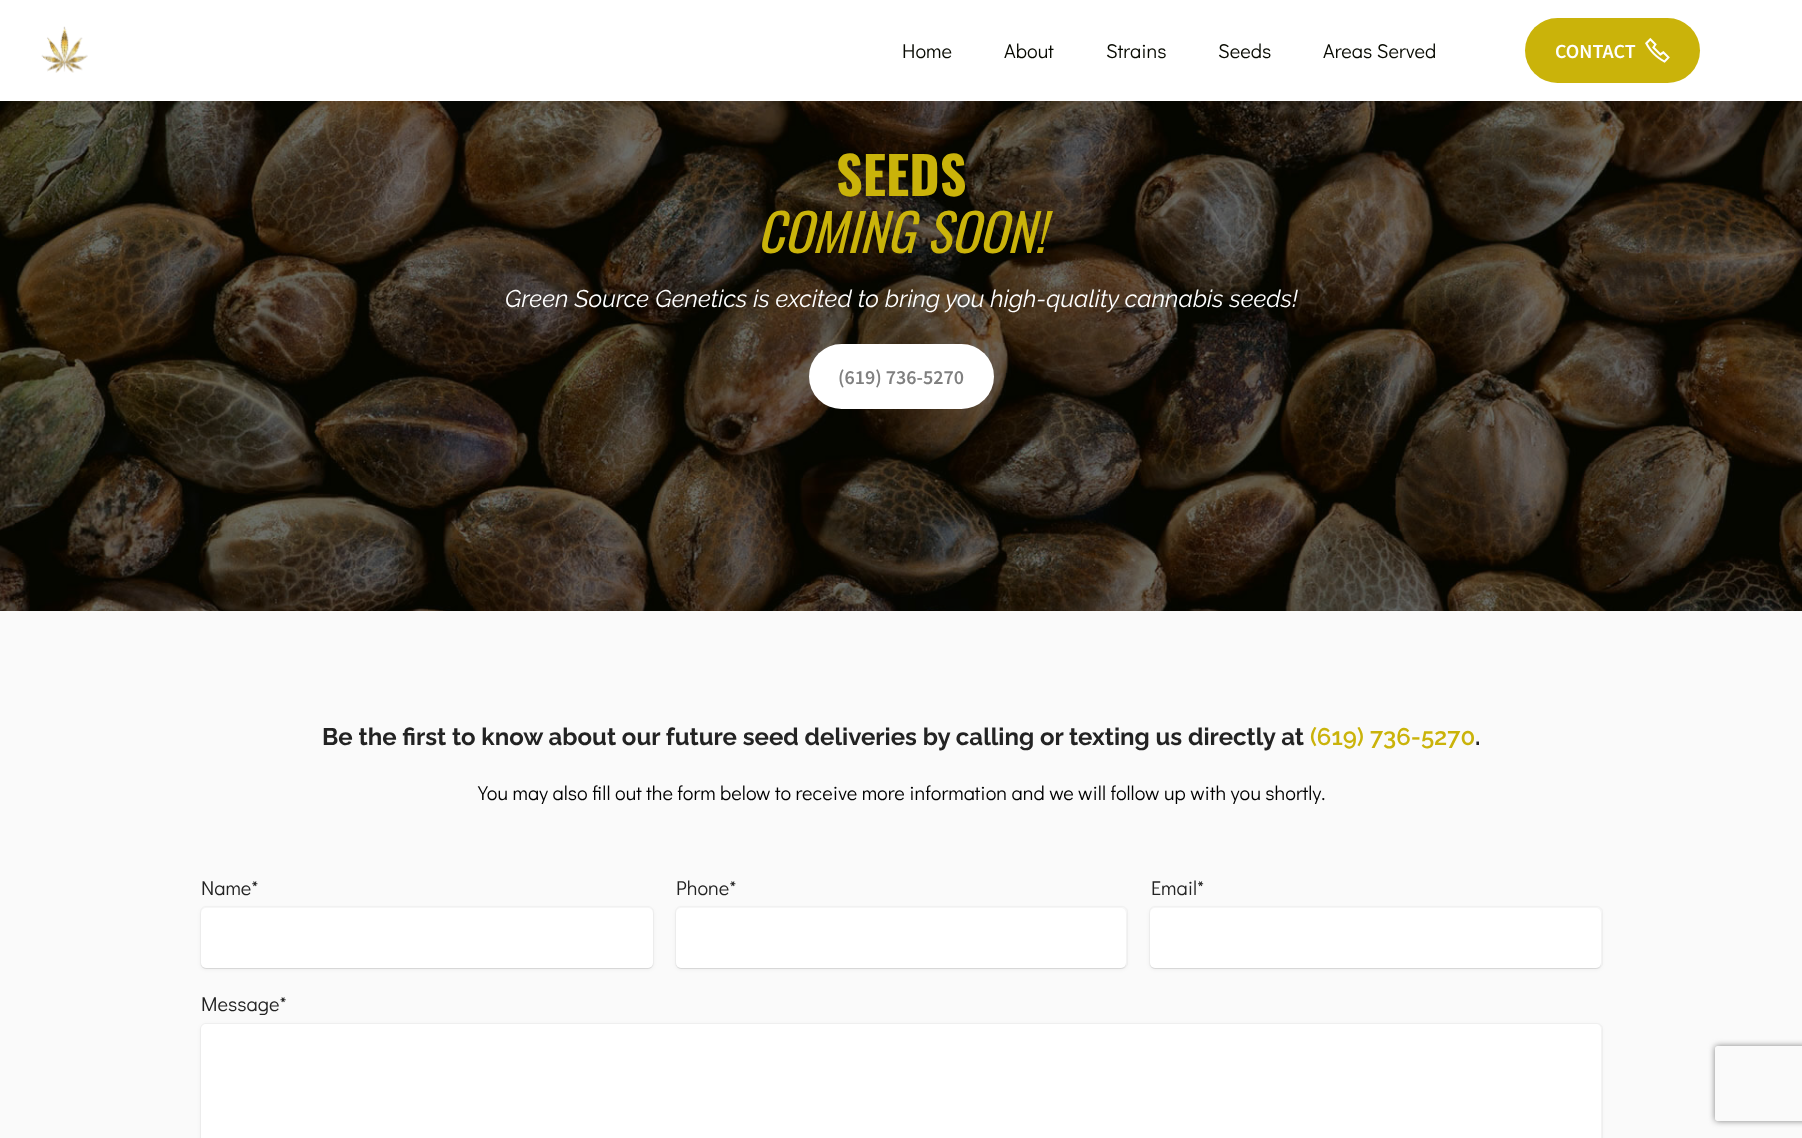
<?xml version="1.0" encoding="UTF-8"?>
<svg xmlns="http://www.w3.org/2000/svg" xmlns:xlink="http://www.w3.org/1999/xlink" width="1802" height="1138">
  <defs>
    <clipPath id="clip1"><path d="M 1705 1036 h 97 v 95 h -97 z m 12.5 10 h 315 c 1.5 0 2.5 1 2.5 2.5 v 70 c 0 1.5 -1 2.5 -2.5 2.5 h -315 c -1.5 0 -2.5 -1 -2.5 -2.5 v -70 c 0 -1.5 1 -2.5 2.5 -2.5 z" clip-rule="evenodd" /></clipPath>
  </defs>
  <rect width="100%" height="100%" fill="#ffffff" />
  <image x="41" y="26" width="47" height="47" xlink:href="image1.png" />
  <rect x="1525" y="18" width="175" height="65" rx="32.5" fill="#cab30a" />
  <image x="1645" y="37" width="25" height="26" xlink:href="image2.png" />
  <image x="0" y="101" width="1802" height="510" xlink:href="image3.png" />
  <rect x="809" y="344" width="185" height="65" rx="32.5" fill="#ffffff" />
  <rect y="611" width="1802" height="527" fill="#fafafa" />
  <rect x="200.5" y="906.5" width="453" height="62" rx="5.5" fill="none" stroke="#f3f3f3" />
  <rect x="201" y="909" width="452" height="60" rx="5" fill="#000000" fill-opacity="0.07" filter="blur(2px)" />
  <rect x="201" y="909" width="452" height="60" rx="5" fill="#000000" fill-opacity="0.07" filter="blur(0.5px)" />
  <rect x="201" y="908" width="452" height="60" rx="5" fill="#ffffff" />
  <rect x="675.5" y="906.5" width="452" height="62" rx="5.5" fill="none" stroke="#f3f3f3" />
  <rect x="676" y="909" width="450" height="60" rx="5" fill="#000000" fill-opacity="0.07" filter="blur(2px)" />
  <rect x="676" y="909" width="450" height="60" rx="5" fill="#000000" fill-opacity="0.07" filter="blur(0.5px)" />
  <rect x="676" y="908" width="450" height="60" rx="5" fill="#ffffff" />
  <rect x="1149.5" y="906.5" width="453" height="62" rx="5.5" fill="none" stroke="#f3f3f3" />
  <rect x="1150" y="909" width="451" height="60" rx="5" fill="#000000" fill-opacity="0.07" filter="blur(2px)" />
  <rect x="1150" y="909" width="451" height="60" rx="5" fill="#000000" fill-opacity="0.07" filter="blur(0.5px)" />
  <rect x="1150" y="908" width="451" height="60" rx="5" fill="#ffffff" />
  <rect x="200.5" y="1023.5" width="1402" height="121" rx="5.5" fill="none" stroke="#f3f3f3" />
  <rect x="201" y="1025" width="1400" height="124" rx="5" fill="#000000" fill-opacity="0.07" filter="blur(2px)" />
  <rect x="201" y="1024" width="1400" height="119" rx="5" fill="#ffffff" />
  <g clip-path="url(#clip1)">
    <rect x="1715" y="1046" width="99" height="75" rx="2.5" fill="#808080" filter="blur(3px)" />
  </g>
  <text x="902" y="58" style="font-family: Didact Gothic; font-size: 20px; fill: #070900">Home</text>
  <text x="1004" y="58" style="font-family: Didact Gothic; font-size: 20px; fill: #070900">About</text>
  <text x="1106" y="58" style="font-family: Didact Gothic; font-size: 20px; fill: #070900">Strains</text>
  <text x="1218" y="58" style="font-family: Didact Gothic; font-size: 20px; fill: #070900">Seeds</text>
  <text x="1323" y="58" style="font-family: Didact Gothic; font-size: 20px; fill: #070900">Areas Served</text>
  <text x="1555" y="58" style="font-family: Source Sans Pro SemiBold; font-size: 20px; font-weight: 600; fill: #ffffff">CONTACT</text>
  <text x="836" y="196" style="font-family: Oswald; font-size: 52px; font-weight: bold; fill: #cab30a">SEEDS</text>
  <text x="757" y="253" style="font-family: Oswald; font-size: 52px; font-style: italic; fill: #cab30a">COMING SOON!</text>
  <text x="505" y="307" style="font-family: Raleway; font-size: 24px; font-style: italic; fill: #ffffff">Green Source Genetics is excited to bring you high-quality cannabis seeds!</text>
  <text x="838" y="384" style="font-family: Source Sans Pro SemiBold; font-size: 20px; font-weight: 600; fill: #808080">(619) 736-5270</text>
  <text x="322" y="745" style="font-family: Raleway; font-size: 24px; font-weight: bold; fill: #232323">Be the first to know about our future seed deliveries by calling or texting us directly at</text>
  <text x="1310" y="745" style="font-family: Raleway; font-size: 24px; font-weight: 600; fill: #cab30a">(619) 736-5270</text>
  <text x="1475" y="745" style="font-family: Raleway; font-size: 24px; font-weight: bold; fill: #232323">.</text>
  <text x="478" y="800" style="font-family: Didact Gothic; font-size: 20px; fill: #000000">You may also fill out the form below to receive more information and we will follow up with you shortly.</text>
  <text x="201" y="895" style="font-family: Didact Gothic; font-size: 20px; fill: #232323">Name*</text>
  <text x="676" y="895" style="font-family: Didact Gothic; font-size: 20px; fill: #232323">Phone*</text>
  <text x="1151" y="895" style="font-family: Didact Gothic; font-size: 20px; fill: #232323">Email*</text>
  <text x="201" y="1011" style="font-family: Didact Gothic; font-size: 20px; fill: #232323">Message*</text>
</svg>
